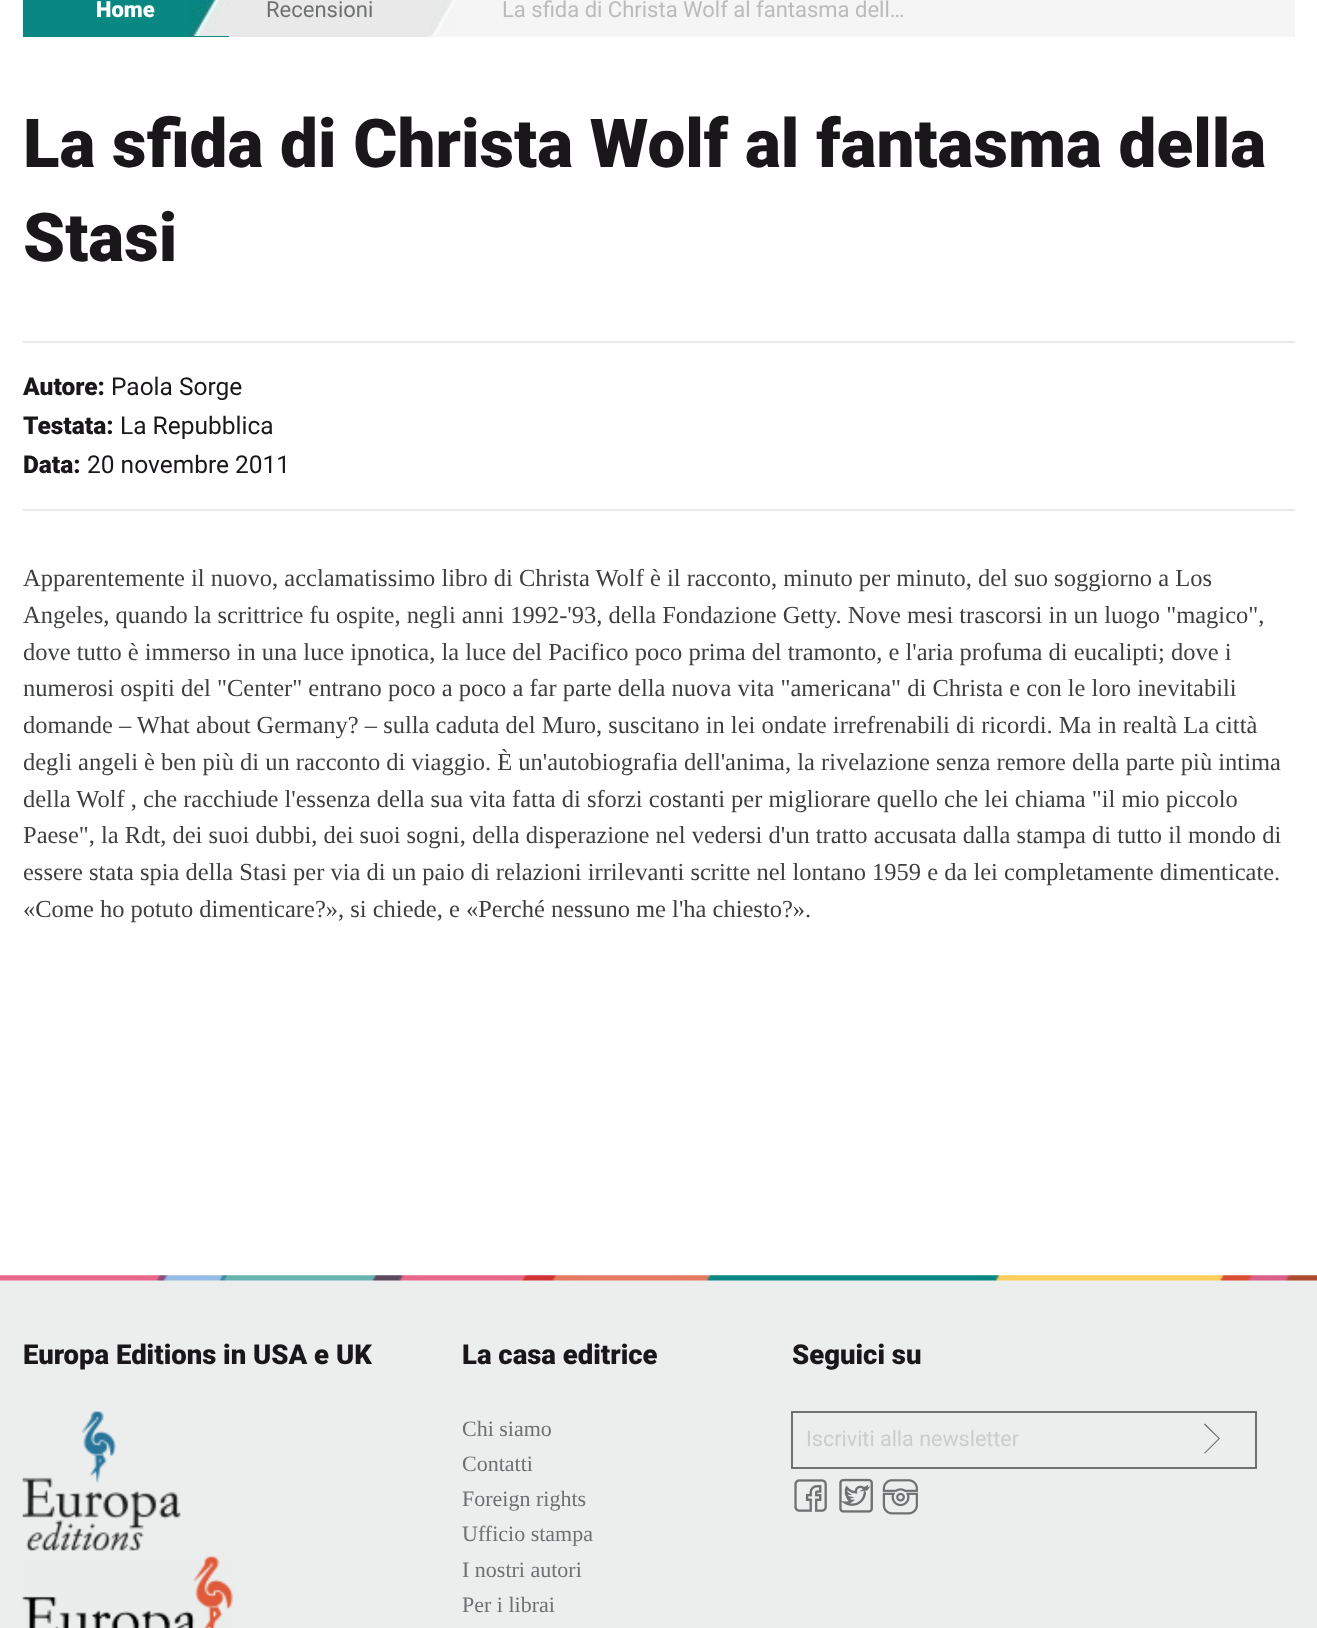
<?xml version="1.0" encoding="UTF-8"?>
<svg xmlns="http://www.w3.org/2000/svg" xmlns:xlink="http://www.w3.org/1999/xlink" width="1317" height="1628">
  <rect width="100%" height="100%" fill="#ffffff" />
  <rect x="429" width="866" height="37" fill="#f5f5f5" />
  <rect x="23" width="206" height="37" fill="#098782" />
  <image x="190" y="0" width="39" height="37" xlink:href="image1.png" />
  <rect x="229" width="200" height="37" fill="#e9e9e9" />
  <image x="429" y="0" width="26" height="36" xlink:href="image2.png" />
  <rect x="23" y="341" width="1272" height="2" fill="#e9e9e9" />
  <rect x="23" y="509" width="1272" height="2" fill="#e9e9e9" />
  <rect y="1280" width="1317" height="348" fill="#eceded" />
  <image x="0" y="1275" width="1317" height="6" xlink:href="image3.png" />
  <image x="22" y="1411" width="159" height="140" xlink:href="image4.png" />
  <image x="22" y="1555" width="212" height="73" xlink:href="image5.png" />
  <rect x="791" y="1411" width="466" height="2" fill="#6f7072" />
  <rect x="791" y="1467" width="378" height="2" fill="#6f7072" />
  <rect x="791" y="1411" width="2" height="57" fill="#6f7072" />
  <rect x="1255" y="1411" width="2" height="57" fill="#6f7072" />
  <rect x="1169" y="1467" width="88" height="2" fill="#6f7072" />
  <path d="M 1204 1453 l 1 0.5 l 15 -15 l -15 -15 l -1 1 l 14.5 14 z" fill="#6f7072" />
  <image x="794" y="1479" width="33" height="33" xlink:href="image6.png" />
  <image x="839" y="1478" width="34" height="35" xlink:href="image7.png" />
  <image x="882" y="1479" width="36" height="36" xlink:href="image8.png" />
  <text x="96" y="17" style="font-family: Roboto; font-size: 22px; font-weight: 900; fill: #ffffff">Home</text>
  <text x="266" y="17" style="font-family: Roboto; font-size: 22px; fill: #6f7072">Recensioni</text>
  <text x="502" y="17" style="font-family: Roboto; font-size: 22px; fill: #bbbbbb">La sfida di Christa Wolf al fantasma dell…</text>
  <text x="23" y="167" style="font-family: Roboto; font-size: 67.4px; font-weight: 900; fill: #1a171b">La sfida di Christa Wolf al fantasma della</text>
  <text x="23" y="261" style="font-family: Roboto; font-size: 67.4px; font-weight: 900; fill: #1a171b">Stasi</text>
  <text x="23" y="395" style="font-family: Roboto; font-size: 24.5px; font-weight: 900; fill: #1a171b">Autore:</text>
  <text x="111" y="395" style="font-family: Roboto; font-size: 24.5px; fill: #1a171b">Paola Sorge</text>
  <text x="23" y="434" style="font-family: Roboto; font-size: 24.5px; font-weight: 900; fill: #1a171b">Testata:</text>
  <text x="120" y="434" style="font-family: Roboto; font-size: 24.5px; fill: #1a171b">La Repubblica</text>
  <text x="23" y="473" style="font-family: Roboto; font-size: 24.5px; font-weight: 900; fill: #1a171b">Data:</text>
  <text x="87" y="473" style="font-family: Roboto; font-size: 24.5px; fill: #1a171b">20 novembre 2011</text>
  <text x="23" y="586" style="font-family: Liberation Serif; font-size: 24.5px; fill: #3e3f40">Apparentemente il nuovo, acclamatissimo libro di Christa Wolf è il racconto, minuto per minuto, del suo soggiorno a Los</text>
  <text x="23" y="623" style="font-family: Liberation Serif; font-size: 24.5px; fill: #3e3f40">Angeles, quando la scrittrice fu ospite, negli anni 1992-'93, della Fondazione Getty. Nove mesi trascorsi in un luogo "magico",</text>
  <text x="23" y="660" style="font-family: Liberation Serif; font-size: 24.5px; fill: #3e3f40">dove tutto è immerso in una luce ipnotica, la luce del Pacifico poco prima del tramonto, e l'aria profuma di eucalipti; dove i</text>
  <text x="23" y="696" style="font-family: Liberation Serif; font-size: 24.5px; fill: #3e3f40">numerosi ospiti del "Center" entrano poco a poco a far parte della nuova vita "americana" di Christa e con le loro inevitabili</text>
  <text x="23" y="733" style="font-family: Liberation Serif; font-size: 24.5px; fill: #3e3f40">domande – What about Germany? – sulla caduta del Muro, suscitano in lei ondate irrefrenabili di ricordi. Ma in realtà La città</text>
  <text x="23" y="770" style="font-family: Liberation Serif; font-size: 24.5px; fill: #3e3f40">degli angeli è ben più di un racconto di viaggio. È un'autobiografia dell'anima, la rivelazione senza remore della parte più intima</text>
  <text x="23" y="807" style="font-family: Liberation Serif; font-size: 24.5px; fill: #3e3f40">della Wolf , che racchiude l'essenza della sua vita fatta di sforzi costanti per migliorare quello che lei chiama "il mio piccolo</text>
  <text x="23" y="843" style="font-family: Liberation Serif; font-size: 24.5px; fill: #3e3f40">Paese", la Rdt, dei suoi dubbi, dei suoi sogni, della disperazione nel vedersi d'un tratto accusata dalla stampa di tutto il mondo di</text>
  <text x="23" y="880" style="font-family: Liberation Serif; font-size: 24.5px; fill: #3e3f40">essere stata spia della Stasi per via di un paio di relazioni irrilevanti scritte nel lontano 1959 e da lei completamente dimenticate.</text>
  <text x="23" y="917" style="font-family: Liberation Serif; font-size: 24.5px; fill: #3e3f40">«Come ho potuto dimenticare?», si chiede, e «Perché nessuno me l'ha chiesto?».</text>
  <text x="23" y="1364" style="font-family: Roboto; font-size: 27.5px; font-weight: 900; fill: #1a171b">Europa Editions in USA e UK</text>
  <text x="462" y="1364" style="font-family: Roboto; font-size: 27.5px; font-weight: 900; fill: #1a171b">La casa editrice</text>
  <text x="462" y="1436" style="font-family: Liberation Serif; font-size: 22px; fill: #6f7072">Chi siamo</text>
  <text x="462" y="1471" style="font-family: Liberation Serif; font-size: 22px; fill: #6f7072">Contatti</text>
  <text x="462" y="1506" style="font-family: Liberation Serif; font-size: 22px; fill: #6f7072">Foreign rights</text>
  <text x="462" y="1541" style="font-family: Liberation Serif; font-size: 22px; fill: #6f7072">Ufficio stampa</text>
  <text x="462" y="1577" style="font-family: Liberation Serif; font-size: 22px; fill: #6f7072">I nostri autori</text>
  <text x="462" y="1612" style="font-family: Liberation Serif; font-size: 22px; fill: #6f7072">Per i librai</text>
  <text x="792" y="1364" style="font-family: Roboto; font-size: 27.5px; font-weight: 900; fill: #1a171b">Seguici su</text>
  <text x="806" y="1446" style="font-family: Roboto; font-size: 21.5px; fill: #cccccc">Iscriviti alla newsletter</text>
</svg>
